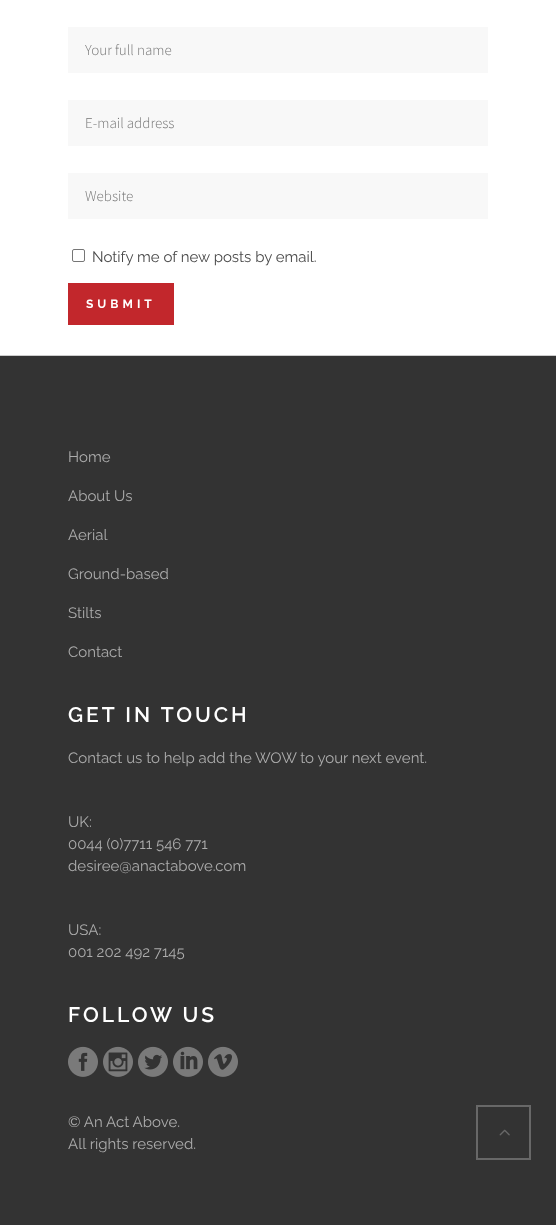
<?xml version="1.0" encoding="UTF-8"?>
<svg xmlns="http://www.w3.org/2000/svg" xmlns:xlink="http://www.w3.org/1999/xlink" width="556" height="1225">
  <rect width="100%" height="100%" fill="#ffffff" />
  <rect x="68" y="27" width="420" height="46" fill="#f8f8f8" />
  <rect x="68" y="100" width="420" height="46" fill="#f8f8f8" />
  <rect x="68" y="173" width="420" height="46" fill="#f8f8f8" />
  <rect x="72.5" y="249.5" width="12" height="12" rx="1.5" fill="none" stroke="#767676" />
  <rect x="68" y="283" width="106" height="42" fill="#c2272c" />
  <rect y="356" width="556" height="869" fill="#333333" />
  <rect y="355" width="556" height="1" fill="#cccccc" />
  <image x="68" y="1046" width="30" height="31" xlink:href="image1.png" />
  <image x="103" y="1046" width="30" height="31" xlink:href="image2.png" />
  <image x="138" y="1046" width="30" height="31" xlink:href="image3.png" />
  <image x="173" y="1046" width="30" height="31" xlink:href="image4.png" />
  <image x="208" y="1046" width="30" height="31" xlink:href="image5.png" />
  <rect x="477" y="1106" width="53" height="53" fill="none" stroke="#686868" stroke-width="2" />
  <image x="499" y="1129" width="11" height="7" xlink:href="image6.png" />
  <text x="85" y="55" style="font-family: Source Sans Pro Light; font-size: 15px; font-weight: 300; fill: #757575">Your full name</text>
  <text x="85" y="128" style="font-family: Source Sans Pro Light; font-size: 15px; font-weight: 300; fill: #757575">E-mail address</text>
  <text x="85" y="201" style="font-family: Source Sans Pro Light; font-size: 15px; font-weight: 300; fill: #757575">Website</text>
  <text x="92" y="262" style="font-family: Raleway; font-size: 15px; fill: #4a4a4a">Notify me of new posts by email.</text>
  <text x="86" y="308" style="font-family: Raleway; font-size: 12px; font-weight: bold; letter-spacing: 4px; fill: #ffffff">SUBMIT</text>
  <text x="68" y="462" style="font-family: Raleway; font-size: 15px; fill: #acacac">Home</text>
  <text x="68" y="501" style="font-family: Raleway; font-size: 15px; fill: #acacac">About Us</text>
  <text x="68" y="540" style="font-family: Raleway; font-size: 15px; fill: #acacac">Aerial</text>
  <text x="68" y="579" style="font-family: Raleway; font-size: 15px; fill: #acacac">Ground-based</text>
  <text x="68" y="618" style="font-family: Raleway; font-size: 15px; fill: #acacac">Stilts</text>
  <text x="68" y="657" style="font-family: Raleway; font-size: 15px; fill: #acacac">Contact</text>
  <text x="68" y="722" style="font-family: Raleway; font-size: 21px; font-weight: 600; letter-spacing: 3px; fill: #ffffff">GET IN TOUCH</text>
  <text x="68" y="763" style="font-family: Raleway; font-size: 15px; fill: #acacac">Contact us to help add the WOW to your next event.</text>
  <text x="68" y="827" style="font-family: Raleway; font-size: 15px; fill: #acacac">UK:</text>
  <text x="68" y="849" style="font-family: Raleway; font-size: 15px; fill: #acacac">0044 (0)7711 546 771</text>
  <text x="68" y="871" style="font-family: Raleway; font-size: 15px; fill: #acacac">desiree@anactabove.com</text>
  <text x="68" y="935" style="font-family: Raleway; font-size: 15px; fill: #acacac">USA:</text>
  <text x="68" y="957" style="font-family: Raleway; font-size: 15px; fill: #acacac">001 202 492 7145</text>
  <text x="68" y="1022" style="font-family: Raleway; font-size: 21px; font-weight: 600; letter-spacing: 3px; fill: #ffffff">FOLLOW US</text>
  <text x="68" y="1127" style="font-family: Raleway; font-size: 15px; fill: #acacac">© An Act Above.</text>
  <text x="68" y="1149" style="font-family: Raleway; font-size: 15px; fill: #acacac">All rights reserved.</text>
</svg>
